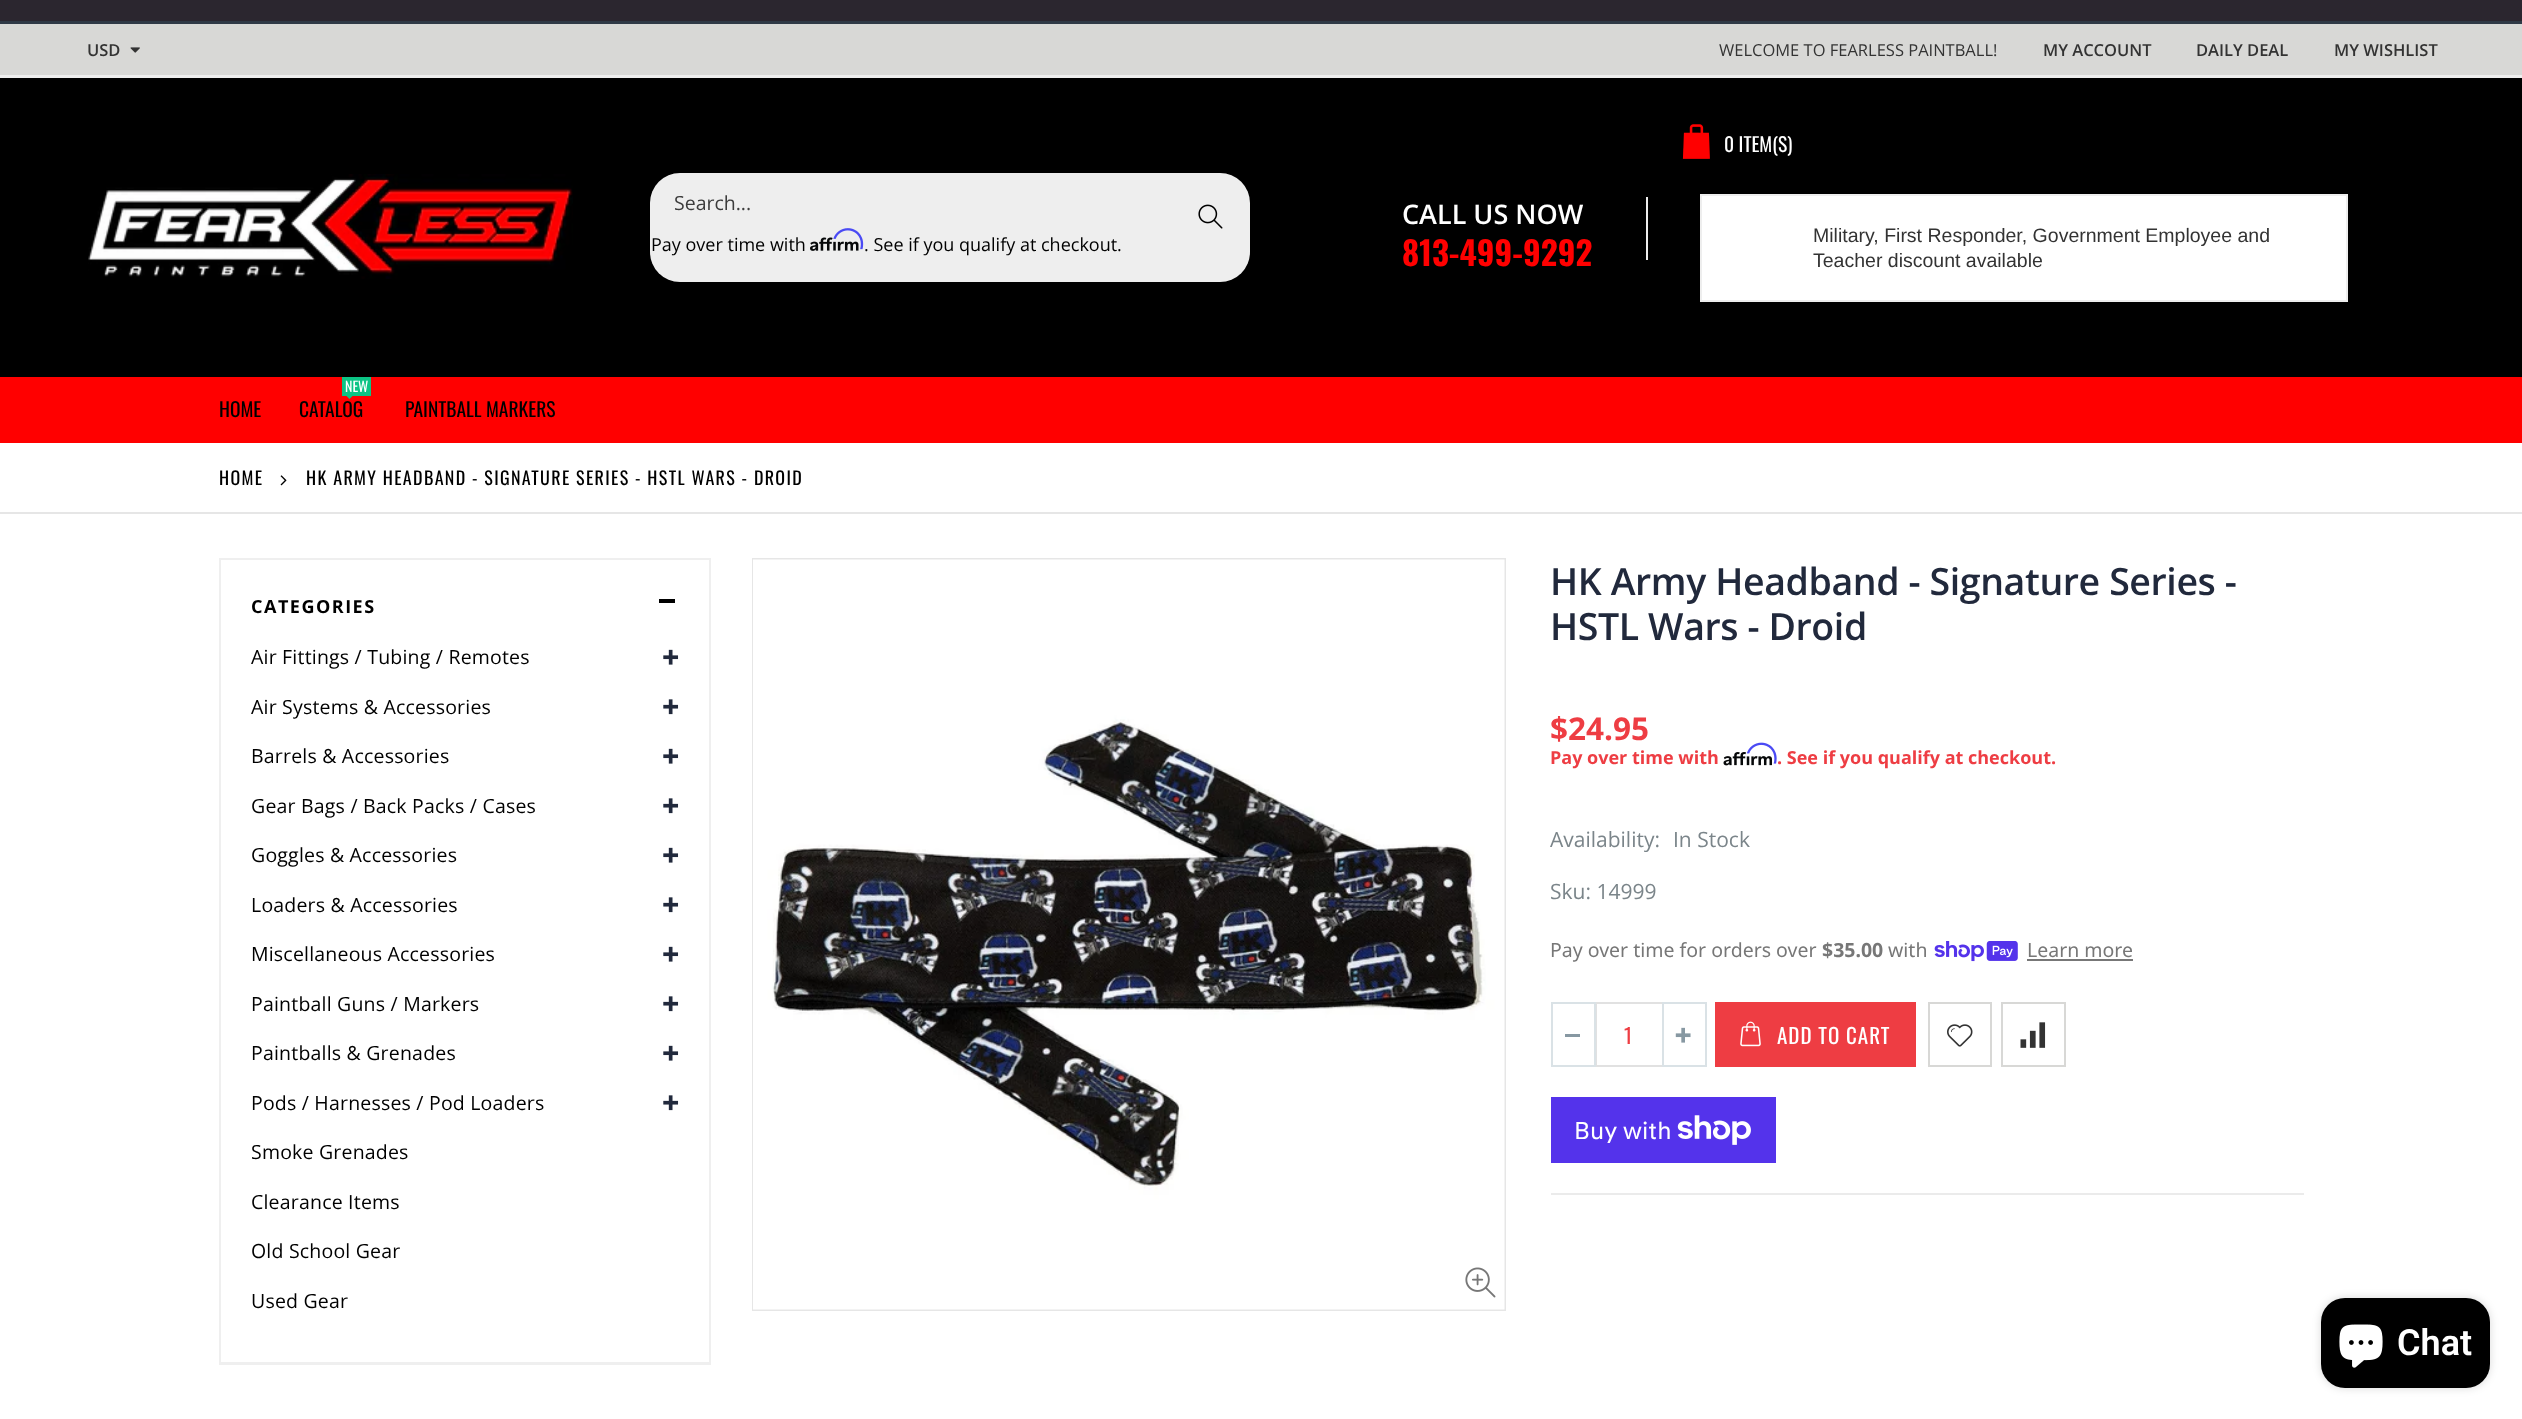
<?xml version="1.0" encoding="UTF-8"?>
<svg xmlns="http://www.w3.org/2000/svg" xmlns:xlink="http://www.w3.org/1999/xlink" width="2522" height="1419">
  <rect width="100%" height="100%" fill="#ffffff" />
  <rect width="2522" height="21" fill="#2b262f" />
  <rect y="78" width="2522" height="299" fill="#000000" />
  <rect y="21" width="2522" height="3" fill="#2f3946" />
  <rect y="24" width="2522" height="51" fill="#d8d8d6" />
  <rect y="75" width="2522" height="3" fill="#eeeeee" />
  <image x="130" y="47" width="10" height="6" xlink:href="image1.png" />
  <image x="88" y="174" width="485" height="105" xlink:href="image2.png" />
  <rect x="650" y="173" width="600" height="109" rx="30" fill="#eeeeee" />
  <image x="1198" y="204" width="25" height="25" xlink:href="image3.png" />
  <image x="810" y="237" width="49" height="14" xlink:href="image5.png" />
  <image x="833" y="228" width="31" height="22" xlink:href="image4.png" />
  <rect x="1646" y="197" width="2" height="63" fill="#eeeeee" />
  <image x="1682" y="124" width="28" height="35" xlink:href="image6.png" />
  <rect x="1701" y="195" width="646" height="106" fill="#ffffff" stroke="#eeeeee" stroke-width="2" />
  <rect y="377" width="2522" height="66" fill="#ff0000" />
  <rect x="342" y="377" width="29" height="19" fill="#0cc485" />
  <path d="M 346.5 396 h 6 l -3 3 z" fill="#0cc485" />
  <rect y="512" width="2522" height="2" fill="#e6e6e6" />
  <image x="280" y="475" width="7" height="11" xlink:href="image7.png" />
  <rect x="220" y="559" width="490" height="805" fill="none" stroke="#efefef" stroke-width="2" />
  <rect x="659" y="599" width="16" height="4" fill="#000000" />
  <rect x="221" y="1362" width="489" height="1" fill="#efefef" />
  <image x="663" y="649" width="16" height="16" xlink:href="image8.png" />
  <image x="663" y="699" width="16" height="16" xlink:href="image9.png" />
  <image x="663" y="748" width="16" height="16" xlink:href="image8.png" />
  <image x="663" y="798" width="16" height="16" xlink:href="image9.png" />
  <image x="663" y="847" width="16" height="16" xlink:href="image8.png" />
  <image x="663" y="897" width="16" height="16" xlink:href="image9.png" />
  <image x="663" y="946" width="16" height="16" xlink:href="image8.png" />
  <image x="663" y="996" width="16" height="16" xlink:href="image9.png" />
  <image x="663" y="1045" width="16" height="16" xlink:href="image8.png" />
  <image x="663" y="1095" width="16" height="16" xlink:href="image9.png" />
  <rect x="753" y="559" width="752" height="751" fill="none" stroke="#e6e6e6" stroke-width="2" />
  <image x="753" y="559" width="752" height="751" xlink:href="image10.png" />
  <image x="1465" y="1267" width="31" height="31" xlink:href="image11.png" />
  <image x="1723" y="752" width="49" height="14" xlink:href="image13.png" />
  <image x="1746" y="742" width="31" height="22" xlink:href="image12.png" />
  <image x="1934" y="941" width="84" height="21" xlink:href="image14.png" />
  <rect x="2027" y="959" width="106" height="2" fill="#777777" />
  <rect x="1551" y="1193" width="753" height="2" fill="#ebebeb" />
  <rect x="1596" y="1003" width="67" height="63" fill="none" stroke="#e1e1e1" stroke-width="2" />
  <rect x="1552" y="1003" width="43" height="63" fill="none" stroke="#dae2e6" stroke-width="2" />
  <rect x="1565" y="1034" width="15" height="3" fill="#8798a2" />
  <rect x="1663" y="1003" width="43" height="63" fill="none" stroke="#dae2e6" stroke-width="2" />
  <image x="1675" y="1027" width="16" height="16" xlink:href="image15.png" />
  <rect x="1715" y="1002" width="201" height="65" fill="#ee3d43" />
  <image x="1740" y="1021" width="21" height="26" xlink:href="image16.png" />
  <rect x="1929" y="1003" width="62" height="63" fill="none" stroke="#d8d8d6" stroke-width="2" />
  <image x="1947" y="1024" width="26" height="23" xlink:href="image17.png" />
  <rect x="2002" y="1003" width="63" height="63" fill="none" stroke="#d8d8d6" stroke-width="2" />
  <image x="2020" y="1022" width="26" height="26" xlink:href="image18.png" />
  <rect x="1551" y="1097" width="225" height="66" fill="#5433eb" />
  <image x="1677" y="1115" width="74" height="30" xlink:href="image19.png" />
  <rect x="2321" y="1298" width="169" height="90" rx="24" fill="#000000" fill-opacity="0.15" filter="blur(4px)" />
  <rect x="2321" y="1298" width="169" height="90" rx="24" fill="#000000" />
  <image x="2339" y="1324" width="44" height="44" xlink:href="image20.png" />
  <text x="87" y="56" style="font-family: Open Sans; font-size: 16.5px; font-weight: 600; fill: #333333">USD</text>
  <text x="1719" y="56" style="font-family: Open Sans; font-size: 16.5px; fill: #333333">WELCOME TO FEARLESS PAINTBALL!</text>
  <text x="2043" y="56" style="font-family: Open Sans; font-size: 16.5px; font-weight: 600; fill: #333333">MY ACCOUNT</text>
  <text x="2196" y="56" style="font-family: Open Sans; font-size: 16.5px; font-weight: 600; fill: #333333">DAILY DEAL</text>
  <text x="2334" y="56" style="font-family: Open Sans; font-size: 16.5px; font-weight: 600; fill: #333333">MY WISHLIST</text>
  <text x="674" y="210" style="font-family: Open Sans; font-size: 19.5px; fill: #3c3c3c">Search...</text>
  <text x="651" y="251" style="font-family: Open Sans; font-size: 18px; fill: #000000">Pay over time with</text>
  <text x="864" y="251" style="font-family: Open Sans; font-size: 18px; fill: #000000">. See if you qualify at checkout.</text>
  <text x="1402" y="224" style="font-family: Open Sans; font-size: 27px; font-weight: 600; fill: #ffffff">CALL US NOW</text>
  <text x="1402" y="266" style="font-family: Oswald; font-size: 33px; font-weight: bold; fill: #ff0000">813-499-9292</text>
  <text x="1724" y="152" style="font-family: Oswald; font-size: 19.5px; fill: #ffffff">0 ITEM(S)</text>
  <text x="1813" y="242" style="font-family: Liberation Sans; font-size: 19.5px; fill: #333333">Military, First Responder, Government Employee and</text>
  <text x="1813" y="267" style="font-family: Liberation Sans; font-size: 19.5px; fill: #333333">Teacher discount available</text>
  <text x="219" y="417" style="font-family: Oswald; font-size: 19.5px; fill: #000000">HOME</text>
  <text x="345" y="392" style="font-family: Oswald; font-size: 14px; fill: #ffffff">NEW</text>
  <text x="299" y="417" style="font-family: Oswald; font-size: 19.5px; fill: #000000">CATALOG</text>
  <text x="405" y="417" style="font-family: Oswald; font-size: 19.5px; fill: #000000">PAINTBALL MARKERS</text>
  <text x="219" y="485" style="font-family: Oswald; font-size: 18px; letter-spacing: 1.35px; fill: #000000">HOME</text>
  <text x="306" y="485" style="font-family: Oswald; font-size: 18px; letter-spacing: 1.35px; fill: #000000">HK ARMY HEADBAND - SIGNATURE SERIES - HSTL WARS - DROID</text>
  <text x="251" y="613" style="font-family: Open Sans; font-size: 18px; font-weight: bold; letter-spacing: 1.5px; fill: #000000">CATEGORIES</text>
  <text x="251" y="664" style="font-family: Open Sans; font-size: 19.5px; letter-spacing: 0.2px; fill: #000000">Air Fittings / Tubing / Remotes</text>
  <text x="251" y="714" style="font-family: Open Sans; font-size: 19.5px; letter-spacing: 0.2px; fill: #000000">Air Systems &amp; Accessories</text>
  <text x="251" y="763" style="font-family: Open Sans; font-size: 19.5px; letter-spacing: 0.2px; fill: #000000">Barrels &amp; Accessories</text>
  <text x="251" y="813" style="font-family: Open Sans; font-size: 19.5px; letter-spacing: 0.2px; fill: #000000">Gear Bags / Back Packs / Cases</text>
  <text x="251" y="862" style="font-family: Open Sans; font-size: 19.5px; letter-spacing: 0.2px; fill: #000000">Goggles &amp; Accessories</text>
  <text x="251" y="912" style="font-family: Open Sans; font-size: 19.5px; letter-spacing: 0.2px; fill: #000000">Loaders &amp; Accessories</text>
  <text x="251" y="961" style="font-family: Open Sans; font-size: 19.5px; letter-spacing: 0.2px; fill: #000000">Miscellaneous Accessories</text>
  <text x="251" y="1011" style="font-family: Open Sans; font-size: 19.5px; letter-spacing: 0.2px; fill: #000000">Paintball Guns / Markers</text>
  <text x="251" y="1060" style="font-family: Open Sans; font-size: 19.5px; letter-spacing: 0.2px; fill: #000000">Paintballs &amp; Grenades</text>
  <text x="251" y="1110" style="font-family: Open Sans; font-size: 19.5px; letter-spacing: 0.2px; fill: #000000">Pods / Harnesses / Pod Loaders</text>
  <text x="251" y="1159" style="font-family: Open Sans; font-size: 19.5px; letter-spacing: 0.2px; fill: #000000">Smoke Grenades</text>
  <text x="251" y="1209" style="font-family: Open Sans; font-size: 19.5px; letter-spacing: 0.2px; fill: #000000">Clearance Items</text>
  <text x="251" y="1258" style="font-family: Open Sans; font-size: 19.5px; letter-spacing: 0.2px; fill: #000000">Old School Gear</text>
  <text x="251" y="1308" style="font-family: Open Sans; font-size: 19.5px; letter-spacing: 0.2px; fill: #000000">Used Gear</text>
  <text x="1550" y="595" style="font-family: Open Sans; font-size: 37.5px; font-weight: 600; letter-spacing: -0.4px; fill: #21293c">HK Army Headband - Signature Series -</text>
  <text x="1550" y="640" style="font-family: Open Sans; font-size: 37.5px; font-weight: 600; letter-spacing: -0.4px; fill: #21293c">HSTL Wars - Droid</text>
  <text x="1550" y="740" style="font-family: Open Sans; font-size: 31.5px; font-weight: bold; fill: #ee3d43">$24.95</text>
  <text x="1550" y="764" style="font-family: Open Sans; font-size: 18px; font-weight: bold; fill: #ee3d43">Pay over time with</text>
  <text x="1777" y="764" style="font-family: Open Sans; font-size: 18px; font-weight: bold; fill: #ee3d43">. See if you qualify at checkout.</text>
  <text x="1550" y="847" style="font-family: Open Sans; font-size: 21px; fill: #7b858a">Availability:</text>
  <text x="1673" y="847" style="font-family: Open Sans; font-size: 21px; fill: #7b858a">In Stock</text>
  <text x="1550" y="899" style="font-family: Open Sans; font-size: 21px; fill: #7b858a">Sku: 14999</text>
  <text x="1550" y="957" style="font-family: Noto Sans; font-size: 19.5px; fill: #777777">Pay over time for orders over</text>
  <text x="1822" y="957" style="font-family: Noto Sans; font-size: 19.5px; font-weight: bold; fill: #777777">$35.00</text>
  <text x="1888" y="957" style="font-family: Noto Sans; font-size: 19.5px; fill: #777777">with</text>
  <text x="2027" y="957" style="font-family: Noto Sans; font-size: 19.5px; fill: #777777">Learn more</text>
  <text x="1624" y="1044" style="font-family: Oswald; font-size: 21px; fill: #ee3d43">1</text>
  <text x="1777" y="1044" style="font-family: Oswald; font-size: 21px; letter-spacing: 1px; fill: #ffffff">ADD TO CART</text>
  <text x="1574" y="1139" style="font-family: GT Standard; font-size: 24px; fill: #ffffff">Buy with</text>
  <text x="2397" y="1355" style="font-family: Roboto; font-size: 36px; font-weight: 600; fill: #ffffff">Chat</text>
</svg>
